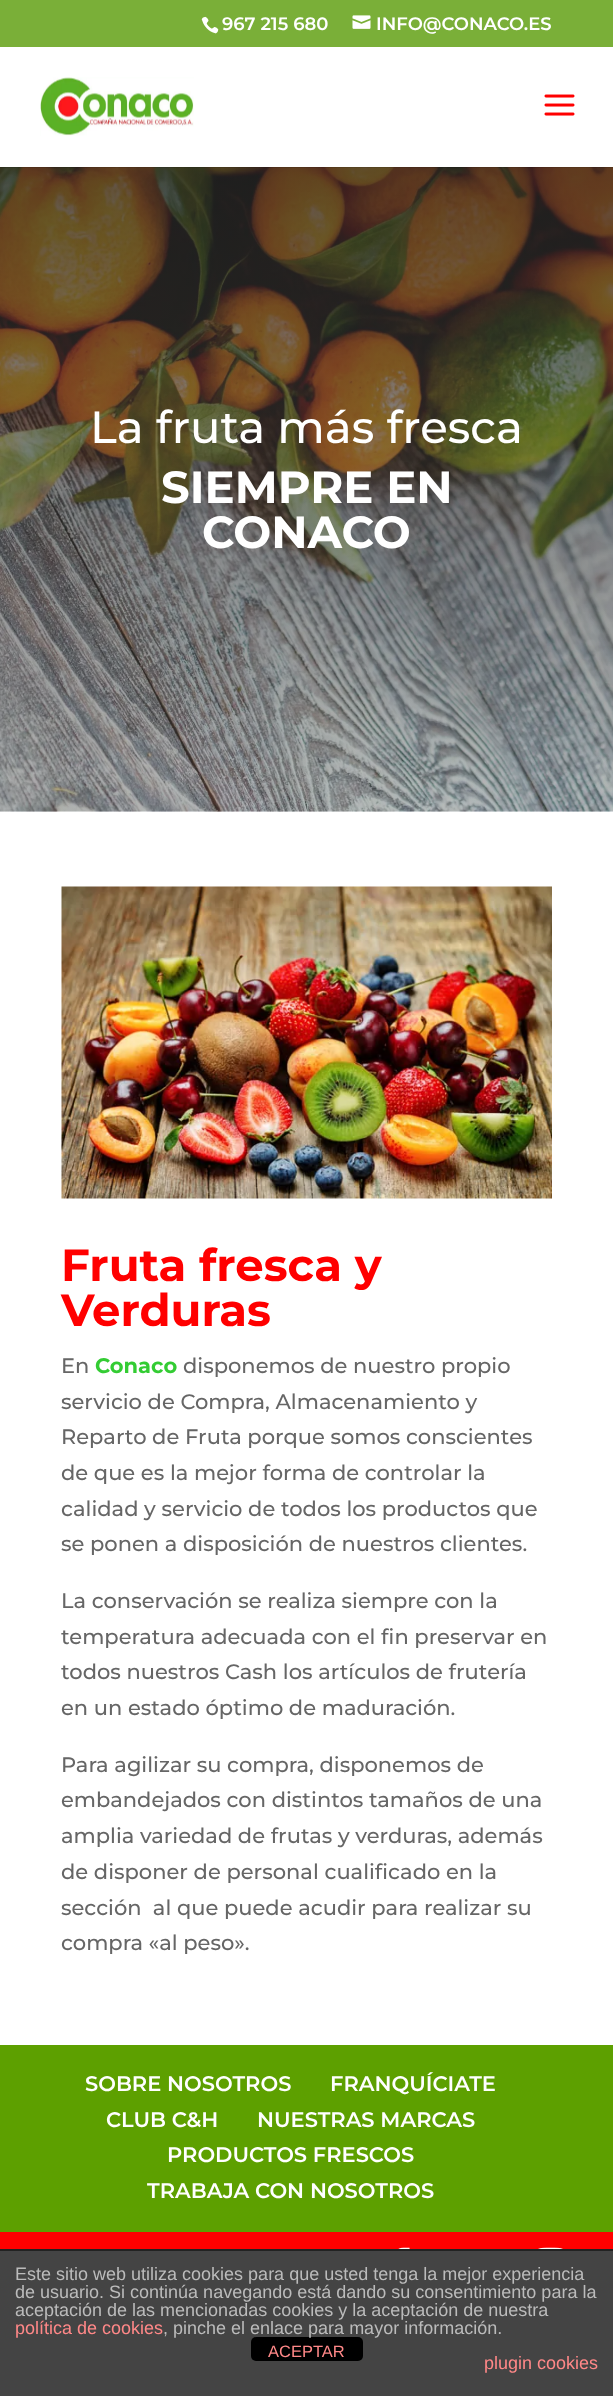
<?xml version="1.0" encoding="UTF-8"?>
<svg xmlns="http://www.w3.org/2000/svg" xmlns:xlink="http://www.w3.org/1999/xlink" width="613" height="2396">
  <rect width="100%" height="100%" fill="#ffffff" />
  <rect width="613" height="47" fill="#7aaf38" />
  <image x="201" y="16" width="18" height="18" xlink:href="image1.png" />
  <image x="352" y="15" width="19" height="14" xlink:href="image2.png" />
  <image x="0" y="167" width="613" height="645" xlink:href="image5.png" />
  <path d="M 0 166 v 2 h 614 v -120 v 118 z" fill="#000000" fill-opacity="0.1" />
  <rect y="166" width="613" height="1" fill="#ffffff" />
  <image x="40" y="77" width="154" height="59" xlink:href="image3.png" />
  <image x="544" y="94" width="31" height="22" xlink:href="image4.png" />
  <image x="61" y="886" width="491" height="313" xlink:href="image6.png" />
  <rect y="2232" width="613" height="17" fill="#ff0000" />
  <rect y="2045" width="613" height="187" fill="#5da000" />
  <image x="398" y="2247" width="12" height="2" xlink:href="image7.png" />
  <image x="538" y="2247" width="25" height="2" xlink:href="image8.png" />
  <rect y="2251" width="613" height="145" fill="#444444" />
  <rect y="2249" width="613" height="2" fill="#222222" />
  <rect x="251" y="2337" width="112" height="24" rx="5" fill="#000000" />
  <text x="222" y="30" style="font-family: Montserrat; font-size: 18px; font-weight: 600; fill: #ffffff">967 215 680</text>
  <text x="376" y="30" style="font-family: Montserrat; font-size: 18px; font-weight: 600; fill: #ffffff">INFO@CONACO.ES</text>
  <text x="90" y="443" style="font-family: Montserrat; font-size: 45px; font-weight: 500; fill: #ffffff">La fruta más fresca</text>
  <text x="161" y="503" style="font-family: Montserrat; font-size: 45px; font-weight: bold; fill: #ffffff">SIEMPRE EN</text>
  <text x="202" y="548" style="font-family: Montserrat; font-size: 45px; font-weight: bold; fill: #ffffff">CONACO</text>
  <text x="61" y="1281" style="font-family: Montserrat; font-size: 45px; font-weight: bold; fill: #ff0000">Fruta fresca y</text>
  <text x="61" y="1326" style="font-family: Montserrat; font-size: 45px; font-weight: bold; fill: #ff0000">Verduras</text>
  <text x="61" y="1373" style="font-family: Montserrat; font-size: 21px; font-weight: 500; fill: #666666">En</text>
  <text x="95" y="1373" style="font-family: Montserrat; font-size: 21px; font-weight: bold; fill: #33cc33">Conaco</text>
  <text x="183" y="1373" style="font-family: Montserrat; font-size: 21px; font-weight: 500; fill: #666666">disponemos de nuestro propio</text>
  <text x="61" y="1409" style="font-family: Montserrat; font-size: 21px; font-weight: 500; fill: #666666">servicio de Compra, Almacenamiento y</text>
  <text x="61" y="1444" style="font-family: Montserrat; font-size: 21px; font-weight: 500; fill: #666666">Reparto de Fruta porque somos conscientes</text>
  <text x="61" y="1480" style="font-family: Montserrat; font-size: 21px; font-weight: 500; fill: #666666">de que es la mejor forma de controlar la</text>
  <text x="61" y="1516" style="font-family: Montserrat; font-size: 21px; font-weight: 500; fill: #666666">calidad y servicio de todos los productos que</text>
  <text x="61" y="1551" style="font-family: Montserrat; font-size: 21px; font-weight: 500; fill: #666666">se ponen a disposición de nuestros clientes.</text>
  <text x="61" y="1608" style="font-family: Montserrat; font-size: 21px; font-weight: 500; fill: #666666">La conservación se realiza siempre con la</text>
  <text x="61" y="1644" style="font-family: Montserrat; font-size: 21px; font-weight: 500; fill: #666666">temperatura adecuada con el fin preservar en</text>
  <text x="61" y="1679" style="font-family: Montserrat; font-size: 21px; font-weight: 500; fill: #666666">todos nuestros Cash los artículos de frutería</text>
  <text x="61" y="1715" style="font-family: Montserrat; font-size: 21px; font-weight: 500; fill: #666666">en un estado óptimo de maduración.</text>
  <text x="61" y="1772" style="font-family: Montserrat; font-size: 21px; font-weight: 500; fill: #666666">Para agilizar su compra, disponemos de</text>
  <text x="61" y="1807" style="font-family: Montserrat; font-size: 21px; font-weight: 500; fill: #666666">embandejados con distintos tamaños de una</text>
  <text x="61" y="1843" style="font-family: Montserrat; font-size: 21px; font-weight: 500; fill: #666666">amplia variedad de frutas y verduras, además</text>
  <text x="61" y="1879" style="font-family: Montserrat; font-size: 21px; font-weight: 500; fill: #666666">de disponer de personal cualificado en la</text>
  <text x="61" y="1915" style="font-family: Montserrat; font-size: 21px; font-weight: 500; fill: #666666" xml:space="preserve">sección  al que puede acudir para realizar su</text>
  <text x="61" y="1950" style="font-family: Montserrat; font-size: 21px; font-weight: 500; fill: #666666">compra «al peso».</text>
  <text x="85" y="2091" style="font-family: Montserrat; font-size: 21px; font-weight: 600; fill: #ffffff">SOBRE NOSOTROS</text>
  <text x="330" y="2091" style="font-family: Montserrat; font-size: 21px; font-weight: 600; fill: #ffffff">FRANQUÍCIATE</text>
  <text x="106" y="2127" style="font-family: Montserrat; font-size: 21px; font-weight: 600; fill: #ffffff">CLUB C&amp;H</text>
  <text x="257" y="2127" style="font-family: Montserrat; font-size: 21px; font-weight: 600; fill: #ffffff">NUESTRAS MARCAS</text>
  <text x="167" y="2162" style="font-family: Montserrat; font-size: 21px; font-weight: 600; fill: #ffffff">PRODUCTOS FRESCOS</text>
  <text x="147" y="2198" style="font-family: Montserrat; font-size: 21px; font-weight: 600; fill: #ffffff">TRABAJA CON NOSOTROS</text>
  <text x="15" y="2280" style="font-family: Liberation Sans; font-size: 18px; fill: #bbbbbb">Este sitio web utiliza cookies para que usted tenga la mejor experiencia</text>
  <text x="15" y="2298" style="font-family: Liberation Sans; font-size: 18px; fill: #bbbbbb">de usuario. Si continúa navegando está dando su consentimiento para la</text>
  <text x="15" y="2316" style="font-family: Liberation Sans; font-size: 18px; fill: #bbbbbb">aceptación de las mencionadas cookies y la aceptación de nuestra</text>
  <text x="15" y="2334" style="font-family: Liberation Sans; font-size: 18px; fill: #ff8888">política de cookies</text>
  <text x="163" y="2334" style="font-family: Liberation Sans; font-size: 18px; fill: #bbbbbb">, pinche el enlace para mayor información.</text>
  <text x="484" y="2369" style="font-family: Liberation Sans; font-size: 18px; fill: #ff8888">plugin cookies</text>
  <text x="268" y="2357" style="font-family: Liberation Sans; font-size: 16.5px; fill: #ff8888">ACEPTAR</text>
</svg>
